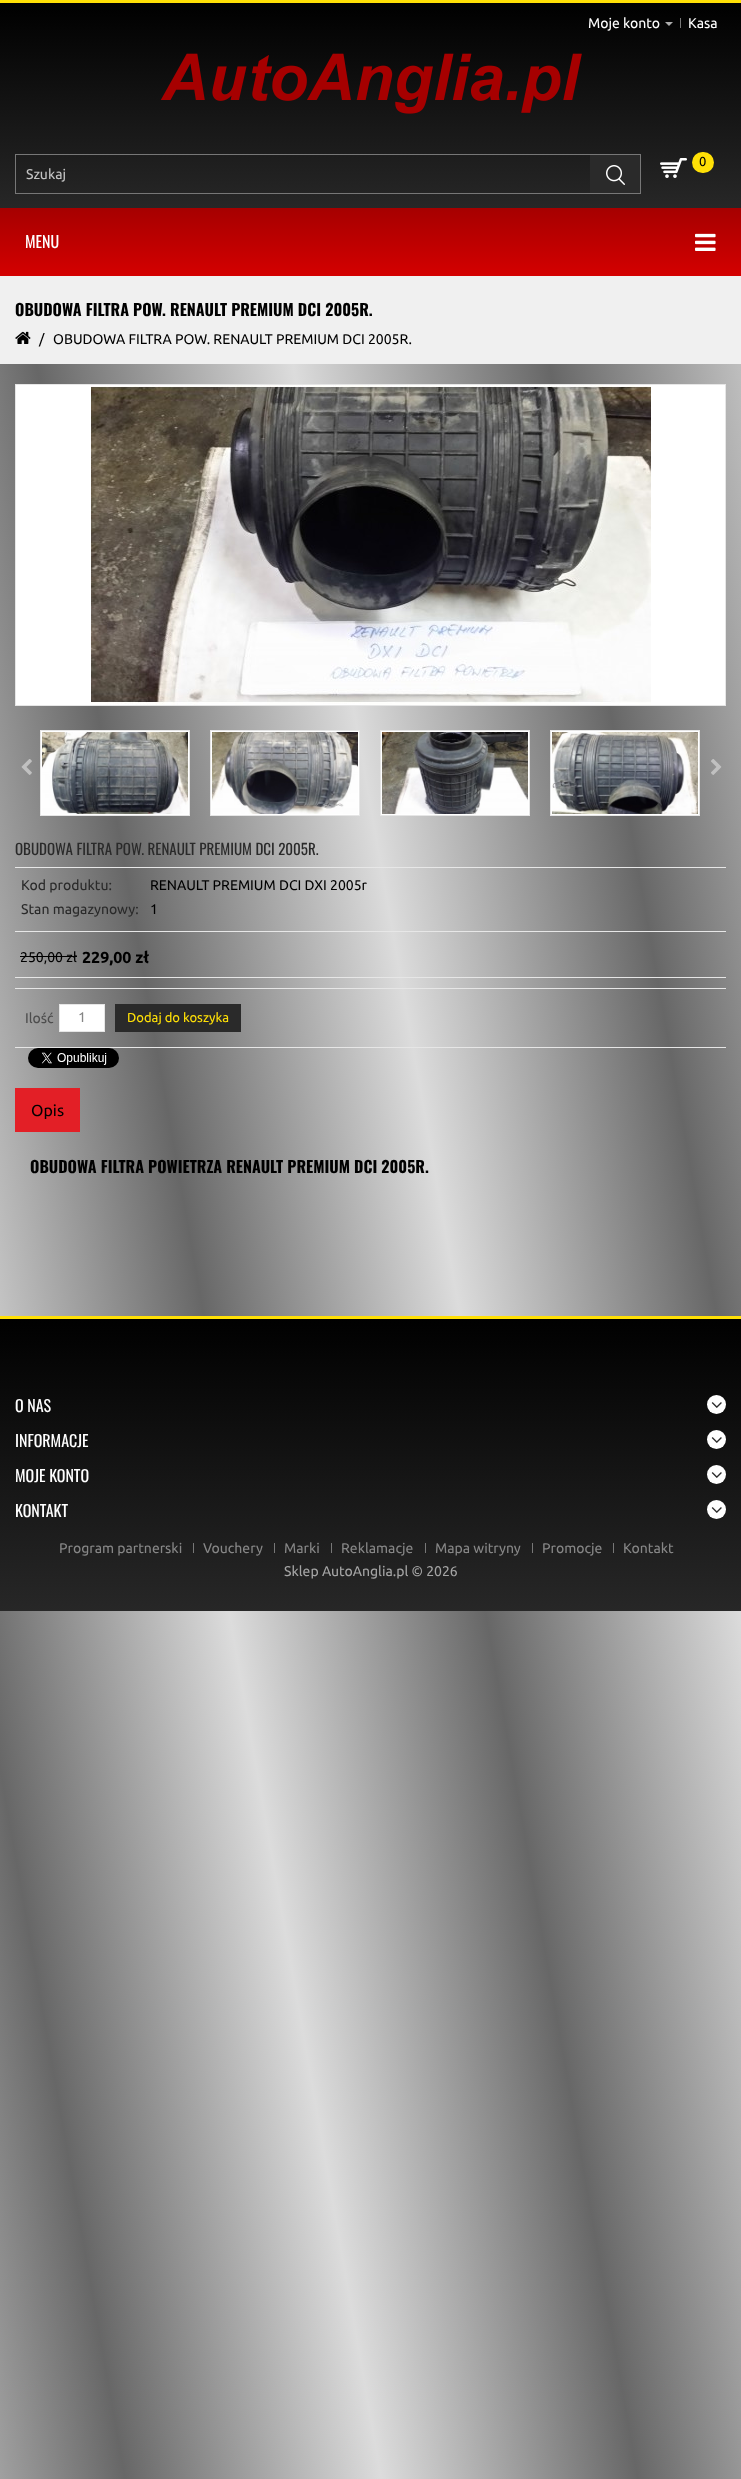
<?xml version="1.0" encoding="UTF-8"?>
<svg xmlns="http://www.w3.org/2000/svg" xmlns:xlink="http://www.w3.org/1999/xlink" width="741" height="2479">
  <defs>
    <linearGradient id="g1" gradientUnits="userSpaceOnUse" x1="-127" y1="893" x2="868" y2="718"><stop offset="0" stop-color="#dcdcdc" /><stop offset="0.25" stop-color="#676767" /><stop offset="0.5" stop-color="#dcdcdc" /><stop offset="0.75" stop-color="#676767" /><stop offset="1" stop-color="#dcdcdc" /></linearGradient>
    <linearGradient id="g2" gradientUnits="userSpaceOnUse" x1="-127" y1="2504" x2="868" y2="2329"><stop offset="0" stop-color="#dcdcdc" /><stop offset="0.25" stop-color="#676767" /><stop offset="0.5" stop-color="#dcdcdc" /><stop offset="0.75" stop-color="#676767" /><stop offset="1" stop-color="#dcdcdc" /></linearGradient>
    <linearGradient id="g3" gradientUnits="userSpaceOnUse" x1="371" y1="208" x2="371" y2="3"><stop offset="0" stop-color="#272727" /><stop offset="1" stop-color="#000000" /></linearGradient>
    <linearGradient id="g4" gradientUnits="userSpaceOnUse" x1="371" y1="276" x2="371" y2="208"><stop offset="0" stop-color="#d40000" /><stop offset="1" stop-color="#a60000" /></linearGradient>
    <linearGradient id="g5" gradientUnits="userSpaceOnUse" x1="371" y1="1611" x2="371" y2="1316"><stop offset="0" stop-color="#272727" /><stop offset="1" stop-color="#000000" /></linearGradient>
  </defs>
  <rect width="100%" height="100%" fill="#ffffff" />
  <rect y="364" width="741" height="952" fill="url(#g1)" />
  <rect y="1611" width="741" height="868" fill="url(#g2)" />
  <rect y="3" width="741" height="205" fill="url(#g3)" />
  <rect width="741" height="3" fill="#ffe006" />
  <rect x="680" y="18" width="1" height="10" fill="#777777" />
  <path d="M 665 22 h 8 l -4 4 z" fill="#acacac" />
  <image x="160" y="53" width="422" height="61" xlink:href="image1.png" />
  <image x="660" y="158" width="27" height="20" xlink:href="image2.png" />
  <rect x="692" y="152" width="22" height="21" rx="10.5" fill="#ffe006" />
  <rect x="15.5" y="154.5" width="625" height="39" fill="none" stroke="#777777" />
  <rect x="590" y="155" width="50" height="38" fill="#2a2a2a" />
  <image x="606" y="165" width="19" height="20" xlink:href="image3.png" />
  <rect y="208" width="741" height="68" fill="url(#g4)" />
  <image x="695" y="233" width="21" height="18" xlink:href="image4.png" />
  <rect y="276" width="741" height="88" fill="#f0f0f0" />
  <image x="15" y="331" width="16" height="13" xlink:href="image5.png" />
  <rect x="15.5" y="384.5" width="710" height="321" fill="#ffffff" stroke="#e6e6e6" />
  <image x="91" y="385" width="560" height="320" xlink:href="image6.png" />
  <rect x="40.5" y="730.5" width="149" height="85" fill="#ffffff" stroke="#e6e6e6" />
  <image x="42" y="732" width="146" height="82" xlink:href="image7.png" />
  <rect x="210.5" y="730.5" width="149" height="85" fill="#ffffff" stroke="#e6e6e6" />
  <image x="212" y="732" width="146" height="82" xlink:href="image8.png" />
  <rect x="380.5" y="730.5" width="149" height="85" fill="#ffffff" stroke="#e6e6e6" />
  <image x="382" y="732" width="146" height="82" xlink:href="image9.png" />
  <rect x="550.5" y="730.5" width="149" height="85" fill="#ffffff" stroke="#e6e6e6" />
  <image x="552" y="732" width="146" height="82" xlink:href="image10.png" />
  <image x="21" y="759" width="11" height="16" xlink:href="image11.png" />
  <image x="711" y="759" width="11" height="16" xlink:href="image12.png" />
  <rect x="15" y="867" width="711" height="1" fill="#e7e7e7" />
  <rect x="15" y="931" width="711" height="1" fill="#e7e7e7" />
  <rect x="20" y="956" width="57" height="1" fill="#000000" />
  <rect x="15" y="977" width="711" height="1" fill="#e6e6e6" />
  <rect x="15" y="988" width="711" height="1" fill="#e6e6e6" />
  <rect x="15" y="1047" width="711" height="1" fill="#e6e6e6" />
  <rect x="59.5" y="1004.5" width="45" height="27" fill="#ffffff" stroke="#e6e6e6" />
  <rect x="115" y="1004" width="126" height="28" fill="#2a2a2a" />
  <image x="28" y="1048" width="91" height="20" xlink:href="image13.png" />
  <rect x="15" y="1088" width="65" height="44" fill="#e31f26" />
  <rect y="1319" width="741" height="292" fill="url(#g5)" />
  <rect y="1316" width="741" height="3" fill="#ffe006" />
  <circle cx="716.5" cy="1404.5" r="9.5" fill="#ffffff" />
  <image x="711" y="1402" width="11" height="6" xlink:href="image14.png" />
  <circle cx="716.5" cy="1439.5" r="9.5" fill="#ffffff" />
  <image x="711" y="1437" width="11" height="6" xlink:href="image14.png" />
  <circle cx="716.5" cy="1474.5" r="9.5" fill="#ffffff" />
  <image x="711" y="1472" width="11" height="6" xlink:href="image14.png" />
  <circle cx="716.5" cy="1509.5" r="9.5" fill="#ffffff" />
  <image x="711" y="1507" width="11" height="6" xlink:href="image14.png" />
  <rect x="193" y="1543" width="1" height="10" fill="#777777" />
  <rect x="274" y="1543" width="1" height="10" fill="#777777" />
  <rect x="331" y="1543" width="1" height="10" fill="#777777" />
  <rect x="425" y="1543" width="1" height="10" fill="#777777" />
  <rect x="532" y="1543" width="1" height="10" fill="#777777" />
  <rect x="613" y="1543" width="1" height="10" fill="#777777" />
  <text x="588" y="28" style="font-family: Ubuntu; font-size: 14px; fill: #ffffff">Moje konto</text>
  <text x="688" y="28" style="font-family: Ubuntu; font-size: 14px; fill: #ffffff">Kasa</text>
  <text x="699" y="166" style="font-family: Ubuntu; font-size: 13px; fill: #000000">0</text>
  <text x="26" y="179" style="font-family: Ubuntu; font-size: 14px; fill: #c3c3c3">Szukaj</text>
  <text x="25" y="248" style="font-family: Oswald; font-size: 16px; fill: #ffffff">MENU</text>
  <text x="15" y="316" style="font-family: Oswald; font-size: 16px; font-weight: bold; fill: #000000">OBUDOWA FILTRA POW. RENAULT PREMIUM DCI 2005R.</text>
  <text x="39" y="344" style="font-family: Ubuntu; font-size: 14px; fill: #000000">/</text>
  <text x="53" y="344" style="font-family: Ubuntu; font-size: 14px; fill: #000000">OBUDOWA FILTRA POW. RENAULT PREMIUM DCI 2005R.</text>
  <text x="15" y="855" style="font-family: Oswald; font-size: 15px; fill: #2a2a2a">OBUDOWA FILTRA POW. RENAULT PREMIUM DCI 2005R.</text>
  <text x="21" y="890" style="font-family: Ubuntu; font-size: 14px; fill: #2a2a2a">Kod produktu:</text>
  <text x="150" y="890" style="font-family: Ubuntu; font-size: 14px; fill: #000000">RENAULT PREMIUM DCI DXI 2005r</text>
  <text x="21" y="914" style="font-family: Ubuntu; font-size: 14px; fill: #2a2a2a">Stan magazynowy:</text>
  <text x="150" y="914" style="font-family: Ubuntu; font-size: 14px; fill: #000000">1</text>
  <text x="20" y="962" style="font-family: Ubuntu; font-size: 14px; fill: #000000">250,00 zł</text>
  <text x="82" y="963" style="font-family: Ubuntu; font-size: 16px; font-weight: bold; fill: #000000">229,00 zł</text>
  <text x="25" y="1023" style="font-family: Ubuntu; font-size: 14px; fill: #4d4d4d">Ilość</text>
  <text x="78" y="1022" style="font-family: Ubuntu; font-size: 14px; fill: #868686">1</text>
  <text x="127" y="1022" style="font-family: Ubuntu; font-size: 13px; fill: #ffe006">Dodaj do koszyka</text>
  <text x="31" y="1116" style="font-family: Ubuntu; font-size: 16px; fill: #000000">Opis</text>
  <text x="30" y="1173" style="font-family: Oswald; font-size: 16px; font-weight: bold; fill: #000000">OBUDOWA FILTRA POWIETRZA RENAULT PREMIUM DCI 2005R.</text>
  <text x="15" y="1412" style="font-family: Oswald; font-size: 16px; fill: #ffffff">O NAS</text>
  <text x="15" y="1447" style="font-family: Oswald; font-size: 16px; fill: #ffffff">INFORMACJE</text>
  <text x="15" y="1482" style="font-family: Oswald; font-size: 16px; fill: #ffffff">MOJE KONTO</text>
  <text x="15" y="1517" style="font-family: Oswald; font-size: 16px; fill: #ffffff">KONTAKT</text>
  <text x="59" y="1553" style="font-family: Ubuntu; font-size: 14px; fill: #868686">Program partnerski</text>
  <text x="203" y="1553" style="font-family: Ubuntu; font-size: 14px; fill: #868686">Vouchery</text>
  <text x="284" y="1553" style="font-family: Ubuntu; font-size: 14px; fill: #868686">Marki</text>
  <text x="341" y="1553" style="font-family: Ubuntu; font-size: 14px; fill: #868686">Reklamacje</text>
  <text x="435" y="1553" style="font-family: Ubuntu; font-size: 14px; fill: #868686">Mapa witryny</text>
  <text x="542" y="1553" style="font-family: Ubuntu; font-size: 14px; fill: #868686">Promocje</text>
  <text x="623" y="1553" style="font-family: Ubuntu; font-size: 14px; fill: #868686">Kontakt</text>
  <text x="284" y="1576" style="font-family: Ubuntu; font-size: 14px; fill: #a4a4a4">Sklep AutoAnglia.pl © 2026</text>
</svg>
